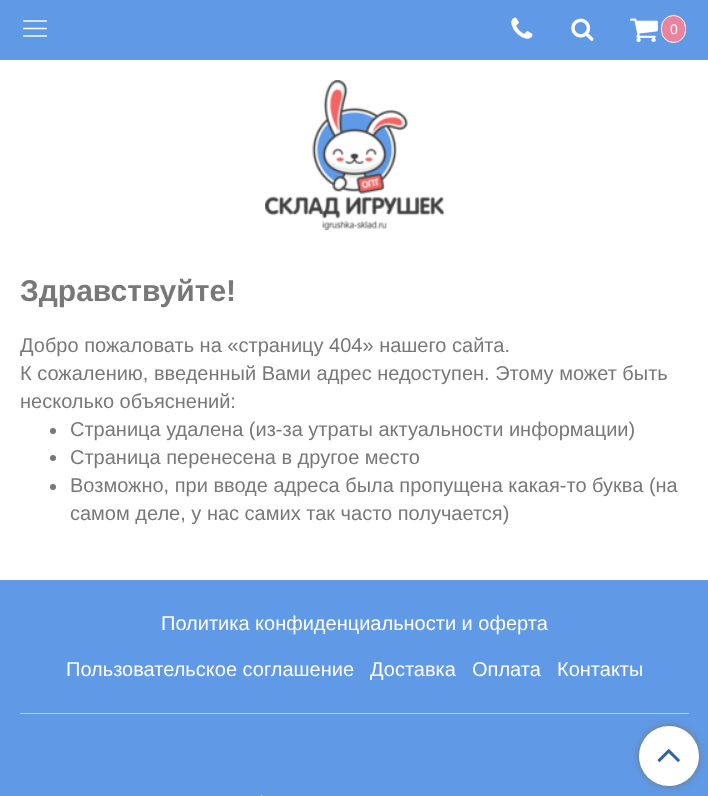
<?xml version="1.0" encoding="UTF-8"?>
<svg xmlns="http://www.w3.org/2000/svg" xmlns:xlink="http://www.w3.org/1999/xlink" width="708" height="796">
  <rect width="100%" height="100%" fill="#ffffff" />
  <rect width="708" height="60" fill="#6099e5" />
  <image x="23" y="20" width="24" height="17" xlink:href="image1.png" />
  <image x="511" y="17" width="22" height="22" xlink:href="image2.png" />
  <image x="571" y="18" width="23" height="23" xlink:href="image3.png" />
  <image x="630" y="18" width="28" height="25" xlink:href="image4.png" />
  <rect x="661.5" y="15.5" width="24" height="27" rx="12" fill="#eb839f" stroke="#ffffff" />
  <image x="265" y="80" width="179" height="150" xlink:href="image5.png" />
  <circle cx="53" cy="431" r="3" fill="#787878" />
  <circle cx="53" cy="458" r="3" fill="#787878" />
  <circle cx="53" cy="487" r="3" fill="#787878" />
  <rect y="580" width="708" height="216" fill="#6099e5" />
  <rect x="20" y="713" width="669" height="1" fill="#ebbac7" />
  <image x="260" y="795" width="3" height="1" xlink:href="image6.png" />
  <rect x="639" y="726" width="60" height="60" rx="30" fill="#777777" filter="blur(3px)" />
  <circle cx="669" cy="756" r="30" fill="#ffffff" />
  <image x="657" y="749" width="23" height="13" xlink:href="image7.png" />
  <text x="670" y="34" style="font-family: Liberation Sans; font-size: 14px; fill: #ffffff">0</text>
  <text x="20" y="301" style="font-family: Liberation Sans; font-size: 30px; font-weight: bold; fill: #787878">Здравствуйте!</text>
  <text x="20" y="352" style="font-family: Liberation Sans; font-size: 20px; fill: #787878">Добро пожаловать на «страницу 404» нашего сайта.</text>
  <text x="20" y="380" style="font-family: Liberation Sans; font-size: 20px; fill: #787878">К сожалению, введенный Вами адрес недоступен. Этому может быть</text>
  <text x="20" y="408" style="font-family: Liberation Sans; font-size: 20px; fill: #787878">несколько объяснений:</text>
  <text x="70" y="436" style="font-family: Liberation Sans; font-size: 20px; fill: #787878">Страница удалена (из-за утраты актуальности информации)</text>
  <text x="70" y="464" style="font-family: Liberation Sans; font-size: 20px; fill: #787878">Страница перенесена в другое место</text>
  <text x="70" y="492" style="font-family: Liberation Sans; font-size: 20px; fill: #787878">Возможно, при вводе адреса была пропущена какая-то буква (на</text>
  <text x="70" y="520" style="font-family: Liberation Sans; font-size: 20px; fill: #787878">самом деле, у нас самих так часто получается)</text>
  <text x="161" y="630" style="font-family: Liberation Sans; font-size: 20px; fill: #ffffff">Политика конфиденциальности и оферта</text>
  <text x="66" y="676" style="font-family: Liberation Sans; font-size: 20px; fill: #ffffff">Пользовательское соглашение</text>
  <text x="370" y="676" style="font-family: Liberation Sans; font-size: 20px; fill: #ffffff">Доставка</text>
  <text x="472" y="676" style="font-family: Liberation Sans; font-size: 20px; fill: #ffffff">Оплата</text>
  <text x="557" y="676" style="font-family: Liberation Sans; font-size: 20px; fill: #ffffff">Контакты</text>
</svg>
